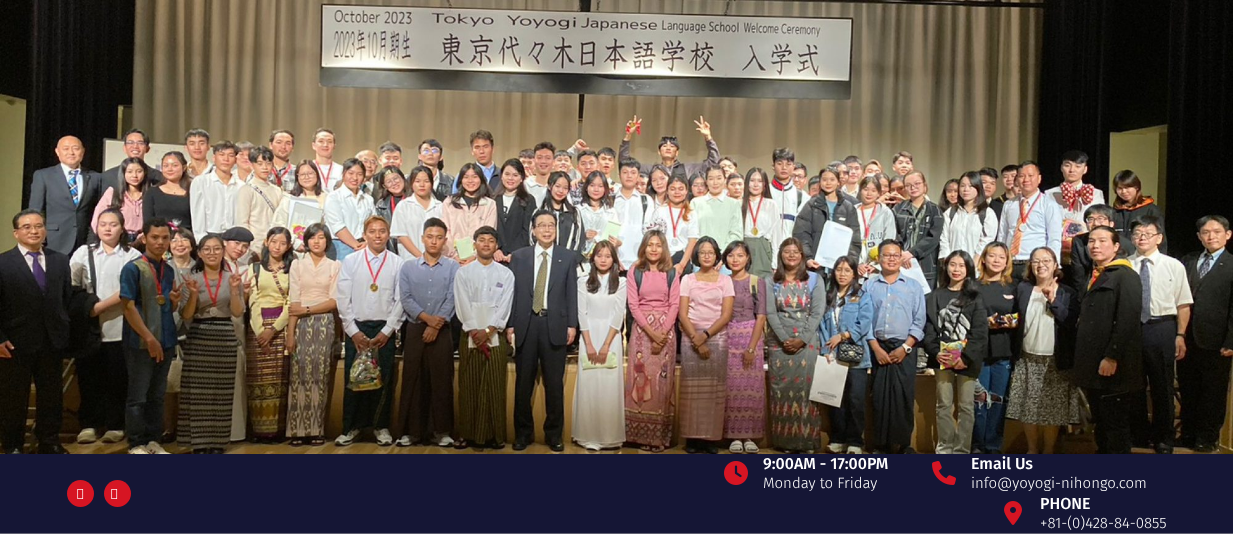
<?xml version="1.0" encoding="UTF-8"?>
<svg xmlns="http://www.w3.org/2000/svg" xmlns:xlink="http://www.w3.org/1999/xlink" width="1233" height="547">
  <rect width="100%" height="100%" fill="#ffffff" />
  <image x="0" y="0" width="1233" height="454" xlink:href="image1.png" />
  <rect y="454" width="1233" height="79" fill="#151635" />
  <rect y="533" width="1233" height="1" fill="#616172" />
  <circle cx="80.5" cy="493.5" r="13.5" fill="#d61523" />
  <image x="77" y="489" width="7" height="10" xlink:href="image2.png" />
  <circle cx="117.5" cy="493.5" r="13.5" fill="#d61523" />
  <image x="111" y="489" width="7" height="10" xlink:href="image2.png" />
  <image x="724" y="461" width="24" height="24" xlink:href="image3.png" />
  <image x="932" y="461" width="24" height="24" xlink:href="image4.png" />
  <image x="1004" y="501" width="18" height="24" xlink:href="image5.png" />
  <text x="763" y="469" style="font-family: Fira Sans; font-size: 16px; font-weight: 500; fill: #ffffff">9:00AM - 17:00PM</text>
  <text x="763" y="488" style="font-family: Fira Sans; font-size: 15px; font-weight: 300; fill: #ffffff">Monday to Friday</text>
  <text x="971" y="469" style="font-family: Fira Sans; font-size: 16px; font-weight: 500; fill: #ffffff">Email Us</text>
  <text x="971" y="488" style="font-family: Fira Sans; font-size: 15px; font-weight: 300; fill: #ffffff">info@yoyogi-nihongo.com</text>
  <text x="1040" y="509" style="font-family: Fira Sans; font-size: 16px; font-weight: 500; fill: #ffffff">PHONE</text>
  <text x="1040" y="528" style="font-family: Fira Sans; font-size: 15px; font-weight: 300; fill: #ffffff">+81-(0)428-84-0855</text>
</svg>
